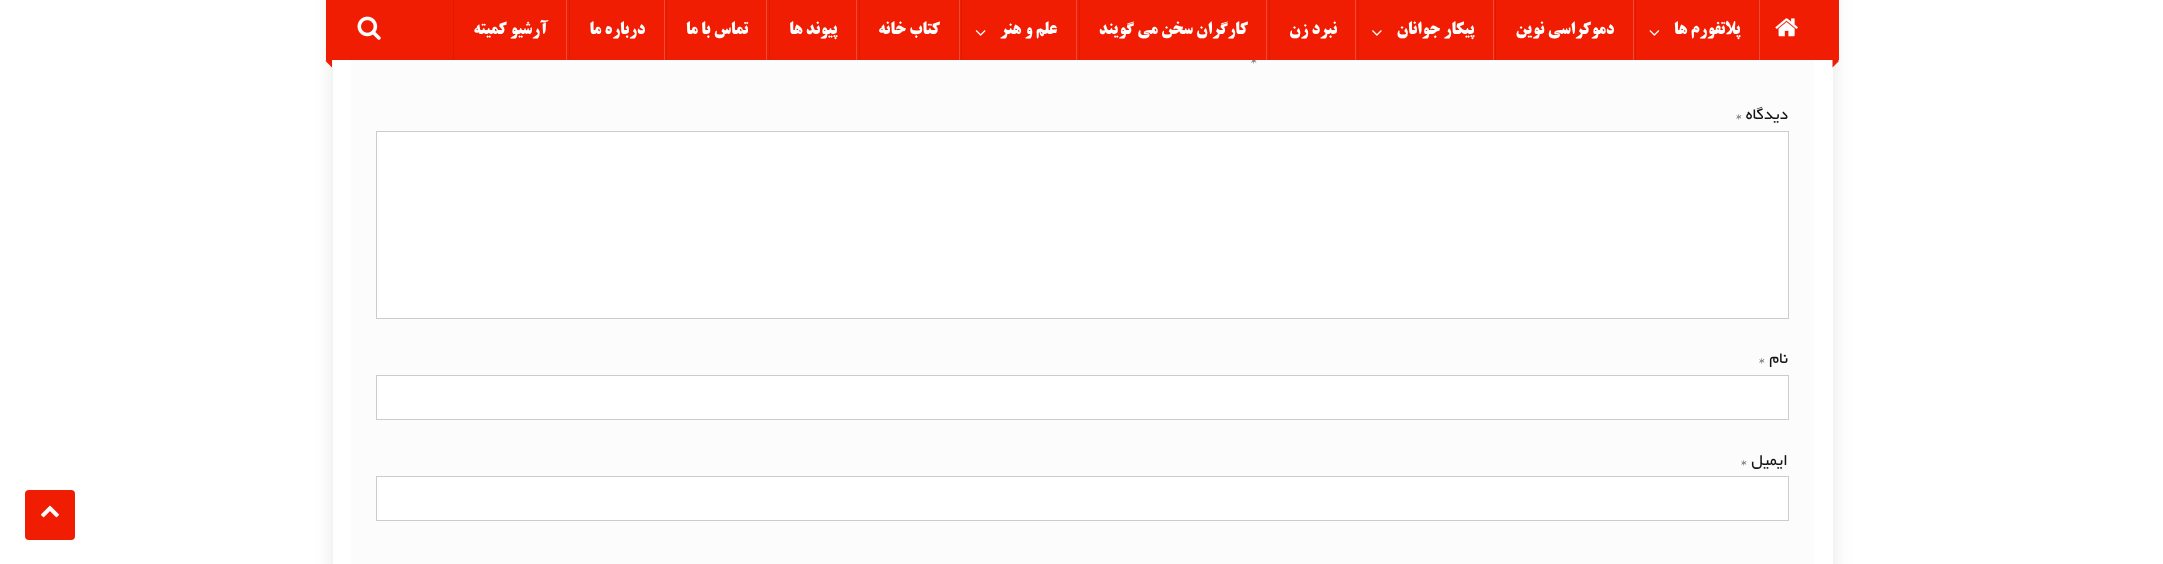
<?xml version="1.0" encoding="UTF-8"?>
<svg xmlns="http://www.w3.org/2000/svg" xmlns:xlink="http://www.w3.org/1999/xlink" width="2163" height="564">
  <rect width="100%" height="100%" fill="#ffffff" />
  <rect x="333" y="-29" width="1500" height="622" fill="#000000" fill-opacity="0.1" filter="blur(9.5px)" />
  <rect x="333" y="60" width="1500" height="504" fill="#ffffff" />
  <path d="M 332 55 v 12.5 l -6.5 -6.5 z" fill="#f01d02" />
  <rect x="326" width="7" height="60" fill="#f01d02" />
  <rect x="351" y="60" width="1463" height="504" fill="#fcfcfc" />
  <rect x="376.5" y="131.5" width="1412" height="187" fill="#ffffff" stroke="#cccccc" />
  <rect x="376.5" y="375.5" width="1412" height="44" fill="#ffffff" stroke="#cccccc" />
  <rect x="376.5" y="476.5" width="1412" height="44" fill="#ffffff" stroke="#cccccc" />
  <rect x="25" y="490" width="50" height="50" rx="4" fill="#f01d02" />
  <image x="41" y="505" width="18" height="13" xlink:href="image6.png" />
  <text x="1251" y="63" style="font-family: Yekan; font-size: 17.5px; fill: #141414">*</text>
  <rect x="333" width="1500" height="60" fill="#f01d02" />
  <path d="M 1832.5 67.5 v -12.5 l 6.5 6 z" fill="#f01d02" />
  <rect x="1833" width="6" height="60" fill="#f01d02" />
  <image x="357" y="16" width="24" height="24" xlink:href="image5.png" />
  <text x="548" y="34" style="font-family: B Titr; font-size: 17.5px; font-weight: bold; direction: rtl; fill: #ffffff">آرشیو کمیته</text>
  <rect x="453" width="1" height="60" fill="#dd1b02" />
  <rect x="566" width="1" height="60" fill="#f34a35" />
  <text x="645" y="34" style="font-family: B Titr; font-size: 17.5px; font-weight: bold; direction: rtl; fill: #ffffff">درباره ما</text>
  <rect x="569" width="1" height="60" fill="#dd1b02" />
  <rect x="664" width="1" height="60" fill="#f34a35" />
  <text x="748" y="34" style="font-family: B Titr; font-size: 17.5px; font-weight: bold; direction: rtl; fill: #ffffff">تماس با ما</text>
  <rect x="666" width="1" height="60" fill="#dd1b02" />
  <rect x="766" width="1" height="60" fill="#f34a35" />
  <text x="837" y="34" style="font-family: B Titr; font-size: 17.5px; font-weight: bold; direction: rtl; fill: #ffffff">پیوند ها</text>
  <rect x="769" width="1" height="60" fill="#dd1b02" />
  <rect x="856" width="1" height="60" fill="#f34a35" />
  <text x="940" y="34" style="font-family: B Titr; font-size: 17.5px; font-weight: bold; direction: rtl; fill: #ffffff">کتاب خانه</text>
  <rect x="859" width="1" height="60" fill="#dd1b02" />
  <rect x="959" width="1" height="60" fill="#f34a35" />
  <image x="975" y="30" width="11" height="6" xlink:href="image4.png" />
  <text x="1057" y="34" style="font-family: B Titr; font-size: 17.5px; font-weight: bold; direction: rtl; fill: #ffffff">علم و هنر</text>
  <rect x="961" width="1" height="60" fill="#dd1b02" />
  <rect x="1076" width="1" height="60" fill="#f34a35" />
  <text x="1248" y="34" style="font-family: B Titr; font-size: 17.5px; font-weight: bold; direction: rtl; fill: #ffffff">کارگران سخن می گویند</text>
  <rect x="1079" width="1" height="60" fill="#dd1b02" />
  <rect x="1266" width="1" height="60" fill="#f34a35" />
  <text x="1337" y="34" style="font-family: B Titr; font-size: 17.5px; font-weight: bold; direction: rtl; fill: #ffffff">نبرد زن</text>
  <rect x="1269" width="1" height="60" fill="#dd1b02" />
  <rect x="1355" width="1" height="60" fill="#f34a35" />
  <image x="1372" y="30" width="10" height="6" xlink:href="image3.png" />
  <text x="1474" y="34" style="font-family: B Titr; font-size: 17.5px; font-weight: bold; direction: rtl; fill: #ffffff">پیکار جوانان</text>
  <rect x="1358" width="1" height="60" fill="#dd1b02" />
  <rect x="1493" width="1" height="60" fill="#f34a35" />
  <text x="1614" y="34" style="font-family: B Titr; font-size: 17.5px; font-weight: bold; direction: rtl; fill: #ffffff">دموکراسی نوین</text>
  <rect x="1495" width="1" height="60" fill="#dd1b02" />
  <rect x="1633" width="1" height="60" fill="#f34a35" />
  <image x="1649" y="30" width="11" height="6" xlink:href="image2.png" />
  <text x="1740" y="34" style="font-family: B Titr; font-size: 17.5px; font-weight: bold; direction: rtl; fill: #ffffff">پلاتفورم ها</text>
  <rect x="1635" width="1" height="60" fill="#dd1b02" />
  <rect x="1759" width="1" height="60" fill="#f34a35" />
  <image x="1775" y="18" width="23" height="19" xlink:href="image1.png" />
  <text x="1788" y="119" style="font-family: Yekan; font-size: 17.5px; direction: rtl; fill: #141414">دیدگاه</text>
  <text x="1736" y="119" style="font-family: Yekan; font-size: 17.5px; fill: #141414">*</text>
  <text x="1788" y="363" style="font-family: Yekan; font-size: 17.5px; direction: rtl; fill: #141414">نام</text>
  <text x="1759" y="363" style="font-family: Yekan; font-size: 17.5px; fill: #141414">*</text>
  <text x="1788" y="465" style="font-family: Yekan; font-size: 17.5px; direction: rtl; fill: #141414">ایمیل</text>
  <text x="1741" y="465" style="font-family: Yekan; font-size: 17.5px; fill: #141414">*</text>
</svg>
